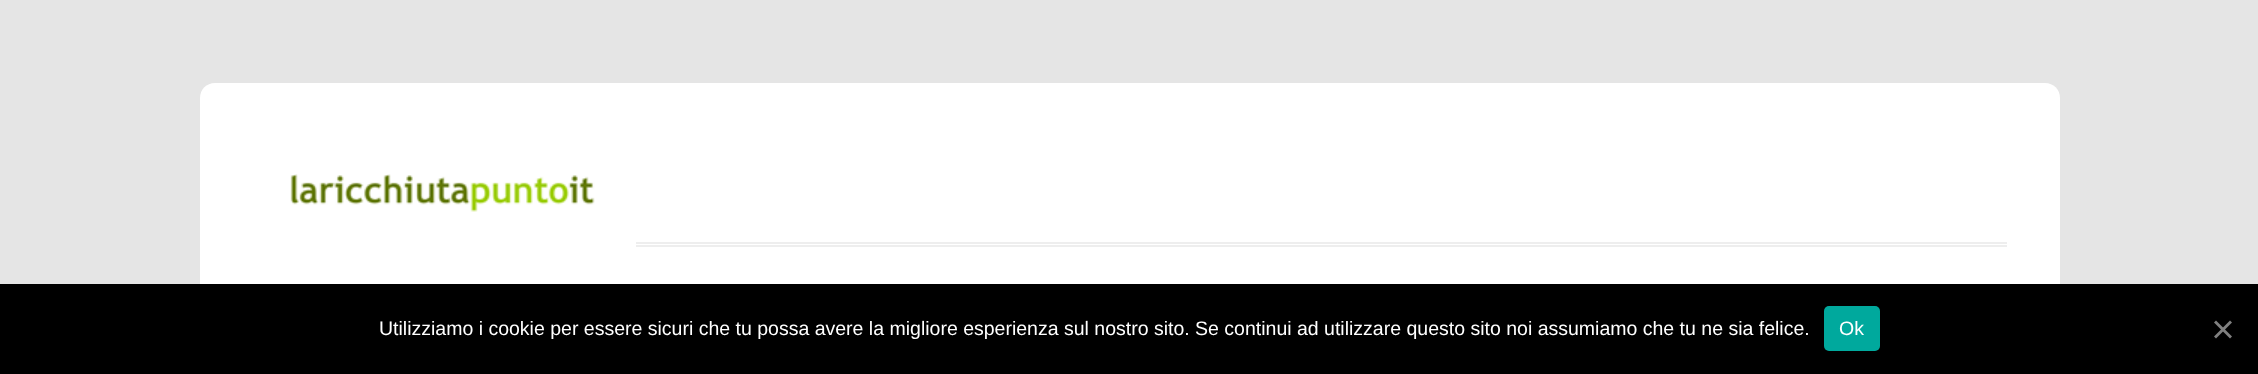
<?xml version="1.0" encoding="UTF-8"?>
<svg xmlns="http://www.w3.org/2000/svg" xmlns:xlink="http://www.w3.org/1999/xlink" width="2258" height="374">
  <rect width="100%" height="100%" fill="#e5e5e5" />
  <path d="M 215 83 h 1830 c 8.5 0 15 6.5 15 15 v 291 h -1860 v -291 c 0 -8.5 6.5 -15 15 -15 z" fill="#ffffff" />
  <image x="252" y="174" width="384" height="110" xlink:href="image1.png" />
  <rect x="636" y="242" width="1371" height="2" fill="#eeeeee" />
  <rect x="636" y="245" width="1371" height="2" fill="#eeeeee" />
  <rect y="284" width="2258" height="90" fill="#000000" />
  <rect x="1824" y="306" width="56" height="45" rx="5" fill="#00a99d" />
  <path d="M 2230 320.5 l 2 2 l -16 16 l -2 -2 z" fill="#808080" />
  <path d="M 2214 322.5 l 2 -2 l 16 16 l -2 2 z" fill="#808080" />
  <text x="379" y="335" style="font-family: Liberation Sans; font-size: 19.5px; fill: #ffffff">Utilizziamo i cookie per essere sicuri che tu possa avere la migliore esperienza sul nostro sito. Se continui ad utilizzare questo sito noi assumiamo che tu ne sia felice.</text>
  <text x="1839" y="335" style="font-family: Liberation Sans; font-size: 19.5px; fill: #ffffff">Ok</text>
</svg>
